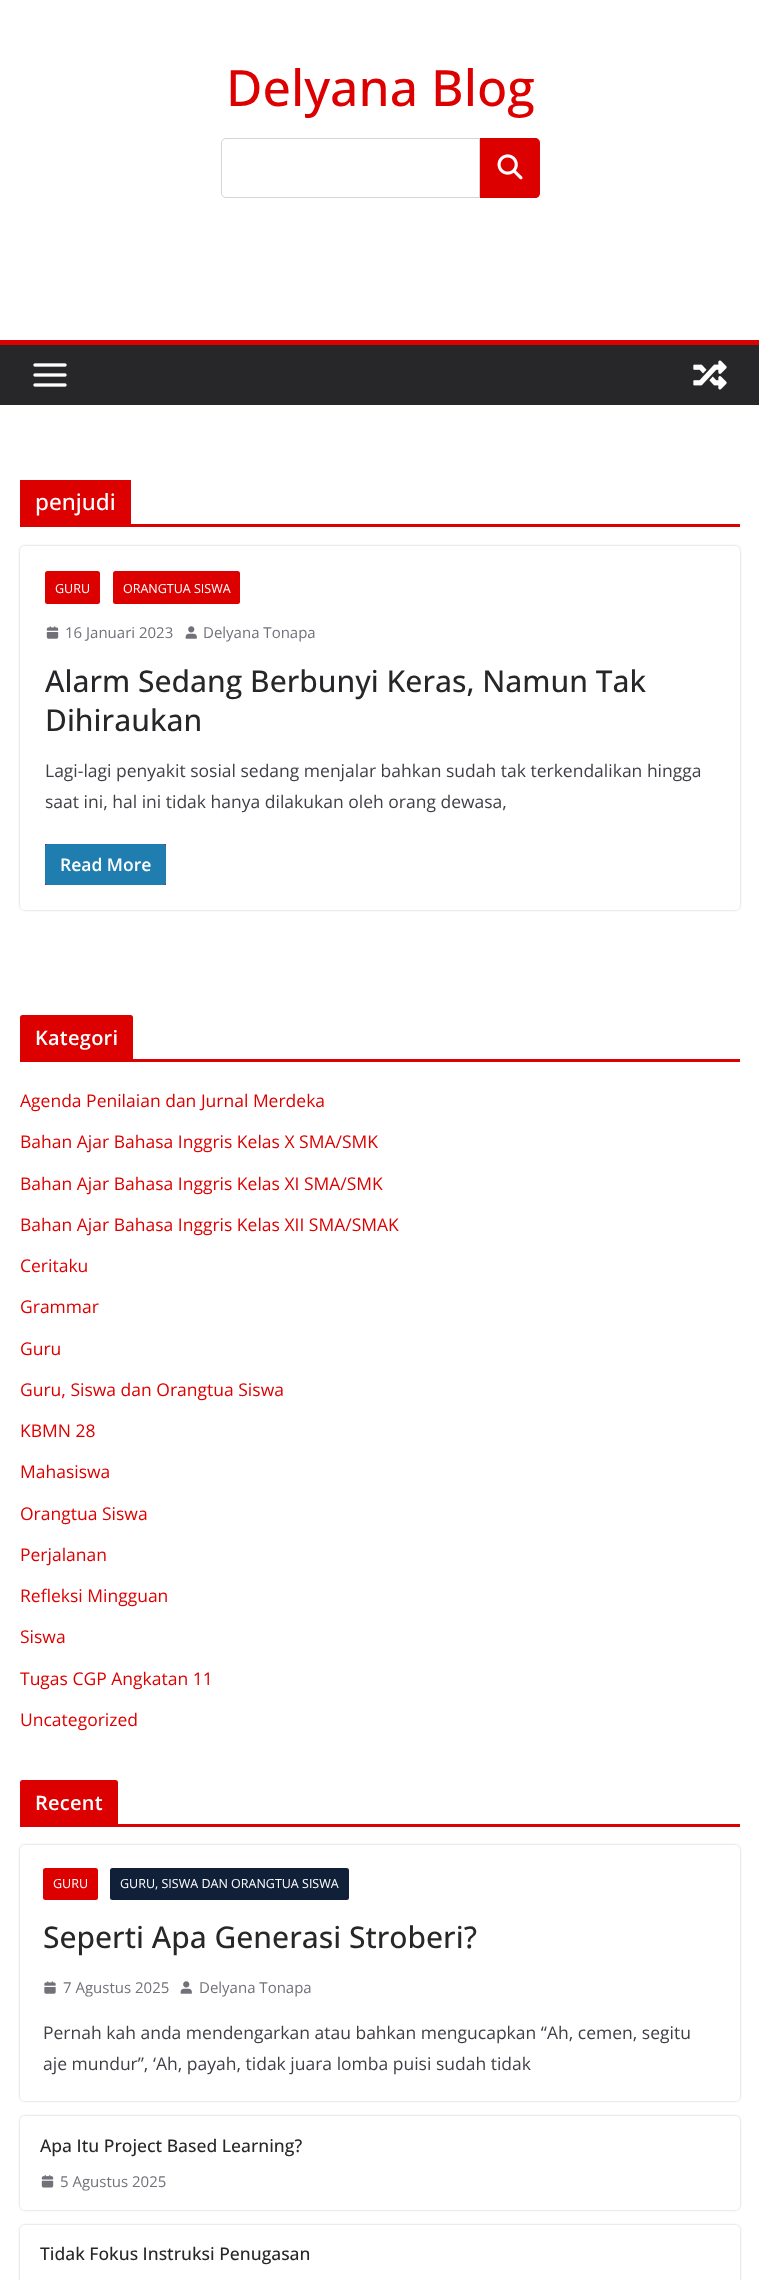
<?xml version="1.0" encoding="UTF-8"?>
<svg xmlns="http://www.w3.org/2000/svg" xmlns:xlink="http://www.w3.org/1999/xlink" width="759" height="2280">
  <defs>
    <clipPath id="clip1"><path d="M 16 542 h 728 v 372 h -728 z m 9 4 h 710 c 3 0 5 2 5 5 v 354 c 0 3 -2 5 -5 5 h -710 c -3 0 -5 -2 -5 -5 v -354 c 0 -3 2 -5 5 -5 z" clip-rule="evenodd" /></clipPath>
    <clipPath id="clip2"><path d="M 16 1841 h 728 v 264 h -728 z m 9 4 h 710 c 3 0 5 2 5 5 v 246 c 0 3 -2 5 -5 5 h -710 c -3 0 -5 -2 -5 -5 v -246 c 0 -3 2 -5 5 -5 z" clip-rule="evenodd" /></clipPath>
    <clipPath id="clip3"><path d="M 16 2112 h 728 v 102 h -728 z m 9 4 h 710 c 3 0 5 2 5 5 v 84 c 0 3 -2 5 -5 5 h -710 c -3 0 -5 -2 -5 -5 v -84 c 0 -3 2 -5 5 -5 z" clip-rule="evenodd" /></clipPath>
    <clipPath id="clip4"><path d="M 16 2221 h 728 v 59 h -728 z m 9 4 h 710 c 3 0 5 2 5 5 v 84 c 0 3 -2 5 -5 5 h -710 c -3 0 -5 -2 -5 -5 v -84 c 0 -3 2 -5 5 -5 z" clip-rule="evenodd" /></clipPath>
  </defs>
  <rect width="100%" height="100%" fill="#ffffff" />
  <path d="M 226 138.5 h 253.5 v 59 h -253.5 c -2.5 0 -4.5 -2 -4.5 -4.5 v -50 c 0 -2.5 2 -4.5 4.5 -4.5 z" fill="none" stroke="#d4d4d8" />
  <path d="M 480 138 h 55 c 3 0 5 2 5 5 v 50 c 0 3 -2 5 -5 5 h -55 z" fill="#dd0000" />
  <image x="497" y="154" width="26" height="26" xlink:href="image1.png" />
  <rect y="345" width="759" height="60" fill="#27272a" />
  <rect y="340" width="759" height="5" fill="#dd0000" />
  <image x="33" y="363" width="34" height="24" xlink:href="image2.png" />
  <image x="693" y="360" width="34" height="30" xlink:href="image3.png" />
  <rect x="20" y="524" width="720" height="3" fill="#dd0000" />
  <rect x="20" y="480" width="111" height="44" fill="#dd0000" />
  <g clip-path="url(#clip1)">
    <rect x="20" y="546" width="720" height="364" rx="5" fill="#000000" fill-opacity="0.24" filter="blur(1px)" />
  </g>
  <rect x="45" y="571" width="55" height="33" rx="2.5" fill="#dd0000" />
  <rect x="113" y="571" width="127" height="33" rx="2.5" fill="#dd0000" />
  <image x="46" y="626" width="13" height="13" xlink:href="image4.png" />
  <image x="185" y="626" width="12" height="13" xlink:href="image5.png" />
  <rect x="45" y="844" width="121" height="41" fill="#dd0000" />
  <rect x="45" y="844" width="121" height="41" rx="2.5" fill="#207daf" />
  <rect x="20" y="1059" width="720" height="3" fill="#dd0000" />
  <path d="M 22.5 1015 h 108 c 1.5 0 2.5 1 2.5 2.5 v 41.5 h -113 v -41.5 c 0 -1.5 1 -2.5 2.5 -2.5 z" fill="#dd0000" />
  <rect x="20" y="1824" width="720" height="3" fill="#dd0000" />
  <path d="M 22.5 1780 h 93 c 1.5 0 2.5 1 2.5 2.5 v 41.5 h -98 v -41.5 c 0 -1.5 1 -2.5 2.5 -2.5 z" fill="#dd0000" />
  <g clip-path="url(#clip2)">
    <rect x="20" y="1845" width="720" height="256" rx="5" fill="#000000" fill-opacity="0.24" filter="blur(1px)" />
  </g>
  <rect x="43" y="1868" width="55" height="32" rx="2.5" fill="#dd0000" />
  <rect x="110" y="1868" width="239" height="32" rx="2.5" fill="#102039" />
  <image x="44" y="1981" width="12" height="13" xlink:href="image6.png" />
  <image x="180" y="1981" width="12" height="13" xlink:href="image5.png" />
  <g clip-path="url(#clip3)">
    <rect x="20" y="2116" width="720" height="94" rx="5" fill="#000000" fill-opacity="0.24" filter="blur(1px)" />
  </g>
  <image x="41" y="2175" width="13" height="13" xlink:href="image7.png" />
  <g clip-path="url(#clip4)">
    <rect x="20" y="2225" width="720" height="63" rx="5" fill="#000000" fill-opacity="0.24" filter="blur(1px)" />
  </g>
  <text x="226" y="106" style="font-family: Open Sans; font-size: 50px; font-weight: 500; fill: #dd0000">Delyana Blog</text>
  <text x="35" y="510" style="font-family: Open Sans; font-size: 22.5px; font-weight: 500; fill: #ffffff">penjudi</text>
  <text x="55" y="593" style="font-family: Open Sans; font-size: 12.5px; fill: #ffffff">GURU</text>
  <text x="123" y="593" style="font-family: Open Sans; font-size: 12.5px; fill: #ffffff">ORANGTUA SISWA</text>
  <text x="65" y="638" style="font-family: Open Sans; font-size: 15px; fill: #71717a">16 Januari 2023</text>
  <text x="203" y="638" style="font-family: Open Sans; font-size: 15px; fill: #71717a">Delyana Tonapa</text>
  <text x="45" y="692" style="font-family: Open Sans; font-size: 30px; font-weight: 500; fill: #27272a">Alarm Sedang Berbunyi Keras, Namun Tak</text>
  <text x="45" y="731" style="font-family: Open Sans; font-size: 30px; font-weight: 500; fill: #27272a">Dihiraukan</text>
  <text x="45" y="777" style="font-family: Open Sans; font-size: 17.5px; fill: #3f3f46">Lagi-lagi penyakit sosial sedang menjalar bahkan sudah tak terkendalikan hingga</text>
  <text x="45" y="808" style="font-family: Open Sans; font-size: 17.5px; fill: #3f3f46">saat ini, hal ini tidak hanya dilakukan oleh orang dewasa,</text>
  <text x="60" y="871" style="font-family: Open Sans; font-size: 17.5px; font-weight: 600; fill: #ffffff">Read More</text>
  <text x="35" y="1045" style="font-family: Open Sans; font-size: 20px; font-weight: 600; letter-spacing: 0.25px; fill: #ffffff">Kategori</text>
  <text x="20" y="1107" style="font-family: Open Sans; font-size: 17.5px; fill: #dd0000">Agenda Penilaian dan Jurnal Merdeka</text>
  <text x="20" y="1148" style="font-family: Open Sans; font-size: 17.5px; fill: #dd0000">Bahan Ajar Bahasa Inggris Kelas X SMA/SMK</text>
  <text x="20" y="1190" style="font-family: Open Sans; font-size: 17.5px; fill: #dd0000">Bahan Ajar Bahasa Inggris Kelas XI SMA/SMK</text>
  <text x="20" y="1231" style="font-family: Open Sans; font-size: 17.5px; fill: #dd0000">Bahan Ajar Bahasa Inggris Kelas XII SMA/SMAK</text>
  <text x="20" y="1272" style="font-family: Open Sans; font-size: 17.5px; fill: #dd0000">Ceritaku</text>
  <text x="20" y="1313" style="font-family: Open Sans; font-size: 17.5px; fill: #dd0000">Grammar</text>
  <text x="20" y="1355" style="font-family: Open Sans; font-size: 17.5px; fill: #dd0000">Guru</text>
  <text x="20" y="1396" style="font-family: Open Sans; font-size: 17.5px; fill: #dd0000">Guru, Siswa dan Orangtua Siswa</text>
  <text x="20" y="1437" style="font-family: Open Sans; font-size: 17.5px; fill: #dd0000">KBMN 28</text>
  <text x="20" y="1478" style="font-family: Open Sans; font-size: 17.5px; fill: #dd0000">Mahasiswa</text>
  <text x="20" y="1520" style="font-family: Open Sans; font-size: 17.5px; fill: #dd0000">Orangtua Siswa</text>
  <text x="20" y="1561" style="font-family: Open Sans; font-size: 17.5px; fill: #dd0000">Perjalanan</text>
  <text x="20" y="1602" style="font-family: Open Sans; font-size: 17.5px; fill: #dd0000">Refleksi Mingguan</text>
  <text x="20" y="1643" style="font-family: Open Sans; font-size: 17.5px; fill: #dd0000">Siswa</text>
  <text x="20" y="1685" style="font-family: Open Sans; font-size: 17.5px; fill: #dd0000">Tugas CGP Angkatan 11</text>
  <text x="20" y="1726" style="font-family: Open Sans; font-size: 17.5px; fill: #dd0000">Uncategorized</text>
  <text x="35" y="1810" style="font-family: Open Sans; font-size: 20px; font-weight: 600; letter-spacing: 0.25px; fill: #ffffff">Recent</text>
  <text x="53" y="1888" style="font-family: Open Sans; font-size: 12.5px; fill: #ffffff">GURU</text>
  <text x="120" y="1888" style="font-family: Open Sans; font-size: 12.5px; fill: #ffffff">GURU, SISWA DAN ORANGTUA SISWA</text>
  <text x="43" y="1948" style="font-family: Open Sans; font-size: 30px; font-weight: 500; fill: #27272a">Seperti Apa Generasi Stroberi?</text>
  <text x="63" y="1993" style="font-family: Open Sans; font-size: 15px; fill: #71717a">7 Agustus 2025</text>
  <text x="199" y="1993" style="font-family: Open Sans; font-size: 15px; fill: #71717a">Delyana Tonapa</text>
  <text x="43" y="2039" style="font-family: Open Sans; font-size: 17.5px; fill: #3f3f46">Pernah kah anda mendengarkan atau bahkan mengucapkan “Ah, cemen, segitu</text>
  <text x="43" y="2070" style="font-family: Open Sans; font-size: 17.5px; fill: #3f3f46">aje mundur”, ‘Ah, payah, tidak juara lomba puisi sudah tidak</text>
  <text x="40" y="2152" style="font-family: Open Sans; font-size: 17.5px; font-weight: 500; fill: #27272a">Apa Itu Project Based Learning?</text>
  <text x="60" y="2187" style="font-family: Open Sans; font-size: 15px; fill: #71717a">5 Agustus 2025</text>
  <text x="40" y="2260" style="font-family: Open Sans; font-size: 17.5px; font-weight: 500; fill: #27272a">Tidak Fokus Instruksi Penugasan</text>
</svg>
